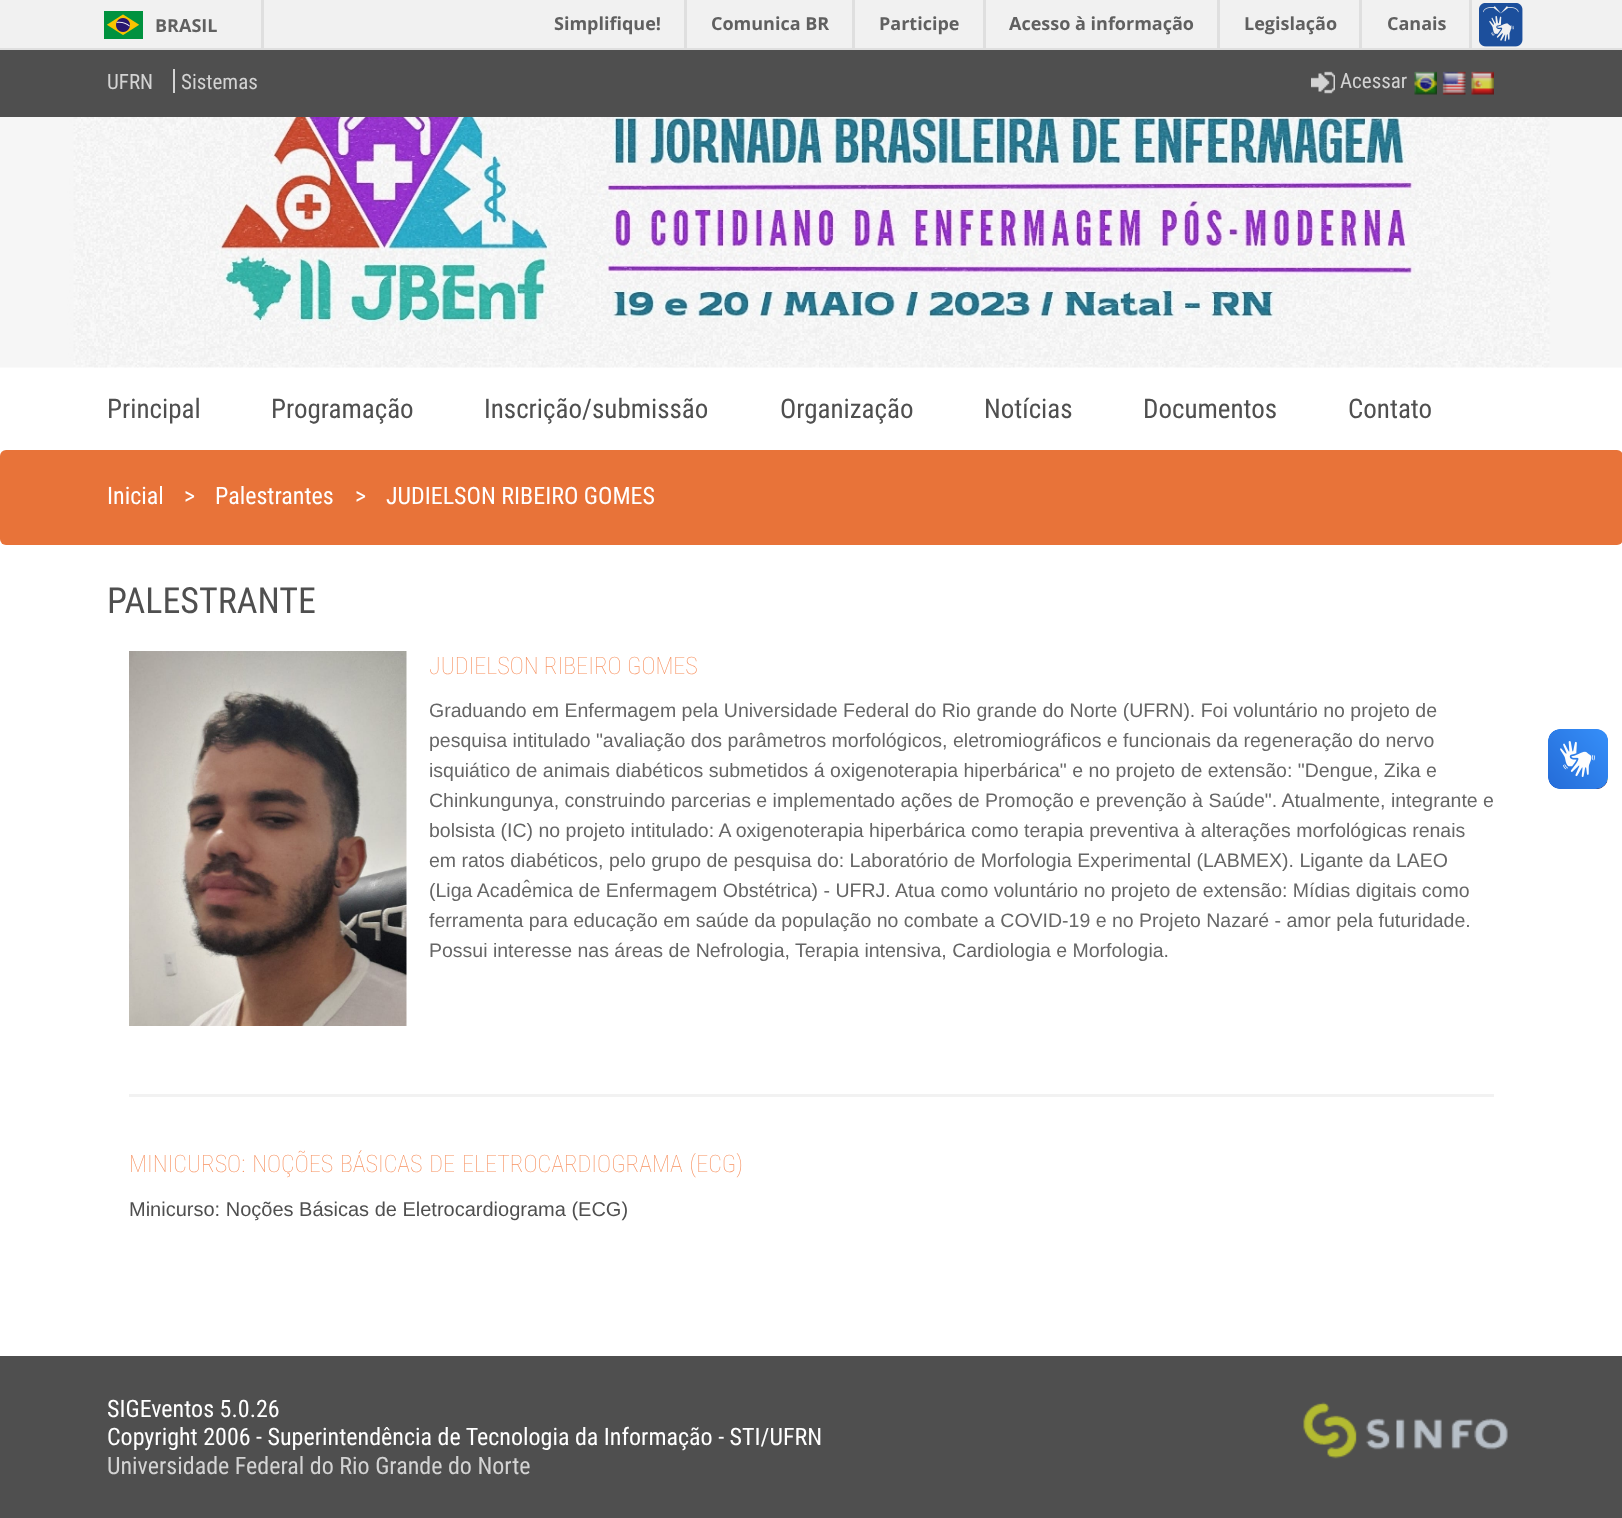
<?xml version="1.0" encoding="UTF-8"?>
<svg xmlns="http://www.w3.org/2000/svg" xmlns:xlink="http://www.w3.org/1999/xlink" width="1622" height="1518">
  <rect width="100%" height="100%" fill="#ffffff" />
  <rect width="1622" height="48" fill="#f1f1f1" />
  <rect y="48" width="1622" height="2" fill="#dfdfdf" />
  <rect x="261" width="3" height="48" fill="#dfdfdf" />
  <image x="104" y="11" width="39" height="28" xlink:href="image1.png" />
  <rect x="684" width="3" height="48" fill="#dfdfdf" />
  <rect x="852" width="3" height="48" fill="#dfdfdf" />
  <rect x="983" width="3" height="48" fill="#dfdfdf" />
  <rect x="1217" width="3" height="48" fill="#dfdfdf" />
  <rect x="1359" width="3" height="48" fill="#dfdfdf" />
  <rect x="1469" width="3" height="48" fill="#dfdfdf" />
  <image x="1479" y="3" width="44" height="44" xlink:href="image2.png" />
  <rect y="50" width="1622" height="67" fill="#4f4f4f" />
  <rect x="173" y="69" width="2" height="24" fill="#d3d3d3" />
  <image x="1311" y="71" width="24" height="23" xlink:href="image3.png" />
  <image x="1414" y="71" width="23" height="24" xlink:href="image4.png" />
  <image x="1442" y="71" width="24" height="24" xlink:href="image5.png" />
  <image x="1471" y="71" width="23" height="24" xlink:href="image6.png" />
  <image x="0" y="117" width="1622" height="251" xlink:href="image7.png" />
  <rect y="450" width="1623" height="95" rx="6" fill="#e87339" />
  <image x="129" y="651" width="278" height="375" xlink:href="image8.png" />
  <rect x="129" y="1094" width="1365" height="3" fill="#f2f2f2" />
  <image x="1548" y="729" width="60" height="60" xlink:href="image9.png" />
  <image x="1548" y="729" width="60" height="60" xlink:href="image10.png" />
  <rect y="1356" width="1622" height="162" fill="#4f4f4f" />
  <image x="1303" y="1402" width="205" height="57" xlink:href="image11.png" />
  <text x="155" y="32" style="font-family: Open Sans; font-size: 18px; font-weight: bold; fill: #606060">BRASIL</text>
  <text x="554" y="30" style="font-family: Open Sans; font-size: 18px; font-weight: bold; fill: #606060">Simplifique!</text>
  <text x="711" y="30" style="font-family: Open Sans; font-size: 18px; font-weight: bold; fill: #606060">Comunica BR</text>
  <text x="879" y="30" style="font-family: Open Sans; font-size: 18px; font-weight: bold; fill: #606060">Participe</text>
  <text x="1009" y="30" style="font-family: Open Sans; font-size: 18px; font-weight: bold; fill: #606060">Acesso à informação</text>
  <text x="1244" y="30" style="font-family: Open Sans; font-size: 18px; font-weight: bold; fill: #606060">Legislação</text>
  <text x="1387" y="30" style="font-family: Open Sans; font-size: 18px; font-weight: bold; fill: #606060">Canais</text>
  <text x="107" y="89" style="font-family: Roboto Condensed; font-size: 21px; fill: #d3d3d3">UFRN</text>
  <text x="181" y="89" style="font-family: Roboto Condensed; font-size: 21px; fill: #d3d3d3">Sistemas</text>
  <text x="1340" y="88" style="font-family: Roboto Condensed; font-size: 21px; fill: #d3d3d3">Acessar</text>
  <text x="107" y="418" style="font-family: Roboto Condensed; font-size: 27px; fill: #4f4f4f">Principal</text>
  <text x="271" y="418" style="font-family: Roboto Condensed; font-size: 27px; fill: #4f4f4f">Programação</text>
  <text x="484" y="418" style="font-family: Roboto Condensed; font-size: 27px; fill: #4f4f4f">Inscrição/submissão</text>
  <text x="780" y="418" style="font-family: Roboto Condensed; font-size: 27px; fill: #4f4f4f">Organização</text>
  <text x="984" y="418" style="font-family: Roboto Condensed; font-size: 27px; fill: #4f4f4f">Notícias</text>
  <text x="1143" y="418" style="font-family: Roboto Condensed; font-size: 27px; fill: #4f4f4f">Documentos</text>
  <text x="1348" y="418" style="font-family: Roboto Condensed; font-size: 27px; fill: #4f4f4f">Contato</text>
  <text x="107" y="504" style="font-family: Roboto Condensed; font-size: 24px; fill: #ffffff">Inicial</text>
  <text x="184" y="504" style="font-family: Roboto Condensed; font-size: 24px; fill: #ffffff">&gt;</text>
  <text x="215" y="504" style="font-family: Roboto Condensed; font-size: 24px; fill: #ffffff">Palestrantes</text>
  <text x="355" y="504" style="font-family: Roboto Condensed; font-size: 24px; fill: #ffffff">&gt;</text>
  <text x="386" y="504" style="font-family: Roboto Condensed; font-size: 24px; fill: #ffffff">JUDIELSON RIBEIRO GOMES</text>
  <text x="107" y="613" style="font-family: Roboto Condensed; font-size: 36px; fill: #4f4f4f">PALESTRANTE</text>
  <text x="429" y="674" style="font-family: Roboto Condensed; font-size: 24px; font-weight: 100; fill: #f79261">JUDIELSON RIBEIRO GOMES</text>
  <text x="429" y="717" style="font-family: Liberation Sans; font-size: 19.5px; fill: #666666">Graduando em Enfermagem pela Universidade Federal do Rio grande do Norte (UFRN). Foi voluntário no projeto de</text>
  <text x="429" y="747" style="font-family: Liberation Sans; font-size: 19.5px; fill: #666666">pesquisa intitulado "avaliação dos parâmetros morfológicos, eletromiográficos e funcionais da regeneração do nervo</text>
  <text x="429" y="777" style="font-family: Liberation Sans; font-size: 19.5px; fill: #666666">isquiático de animais diabéticos submetidos á oxigenoterapia hiperbárica" e no projeto de extensão: "Dengue, Zika e</text>
  <text x="429" y="807" style="font-family: Liberation Sans; font-size: 19.5px; fill: #666666">Chinkungunya, construindo parcerias e implementado ações de Promoção e prevenção à Saúde". Atualmente, integrante e</text>
  <text x="429" y="837" style="font-family: Liberation Sans; font-size: 19.5px; fill: #666666">bolsista (IC) no projeto intitulado: A oxigenoterapia hiperbárica como terapia preventiva à alterações morfológicas renais</text>
  <text x="429" y="867" style="font-family: Liberation Sans; font-size: 19.5px; fill: #666666">em ratos diabéticos, pelo grupo de pesquisa do: Laboratório de Morfologia Experimental (LABMEX). Ligante da LAEO</text>
  <text x="429" y="897" style="font-family: Liberation Sans; font-size: 19.5px; fill: #666666">(Liga Acadêmica de Enfermagem Obstétrica) - UFRJ. Atua como voluntário no projeto de extensão: Mídias digitais como</text>
  <text x="429" y="927" style="font-family: Liberation Sans; font-size: 19.5px; fill: #666666">ferramenta para educação em saúde da população no combate a COVID-19 e no Projeto Nazaré - amor pela futuridade.</text>
  <text x="429" y="957" style="font-family: Liberation Sans; font-size: 19.5px; fill: #666666">Possui interesse nas áreas de Nefrologia, Terapia intensiva, Cardiologia e Morfologia.</text>
  <text x="129" y="1172" word-spacing="1.5" style="font-family: Roboto Condensed; font-size: 24px; font-weight: 100; fill: #f79261">MINICURSO: NOÇÕES BÁSICAS DE ELETROCARDIOGRAMA (ECG)</text>
  <text x="129" y="1216" style="font-family: Liberation Sans; font-size: 20px; fill: #4f4f4f">Minicurso: Noções Básicas de Eletrocardiograma (ECG)</text>
  <text x="107" y="1417" style="font-family: Roboto Condensed; font-size: 24px; fill: #ffffff">SIGEventos 5.0.26</text>
  <text x="107" y="1445" style="font-family: Roboto Condensed; font-size: 24px; fill: #ffffff">Copyright 2006 - Superintendência de Tecnologia da Informação - STI/UFRN</text>
  <text x="107" y="1474" style="font-family: Roboto Condensed; font-size: 24px; fill: #d3d3d3">Universidade Federal do Rio Grande do Norte</text>
</svg>
